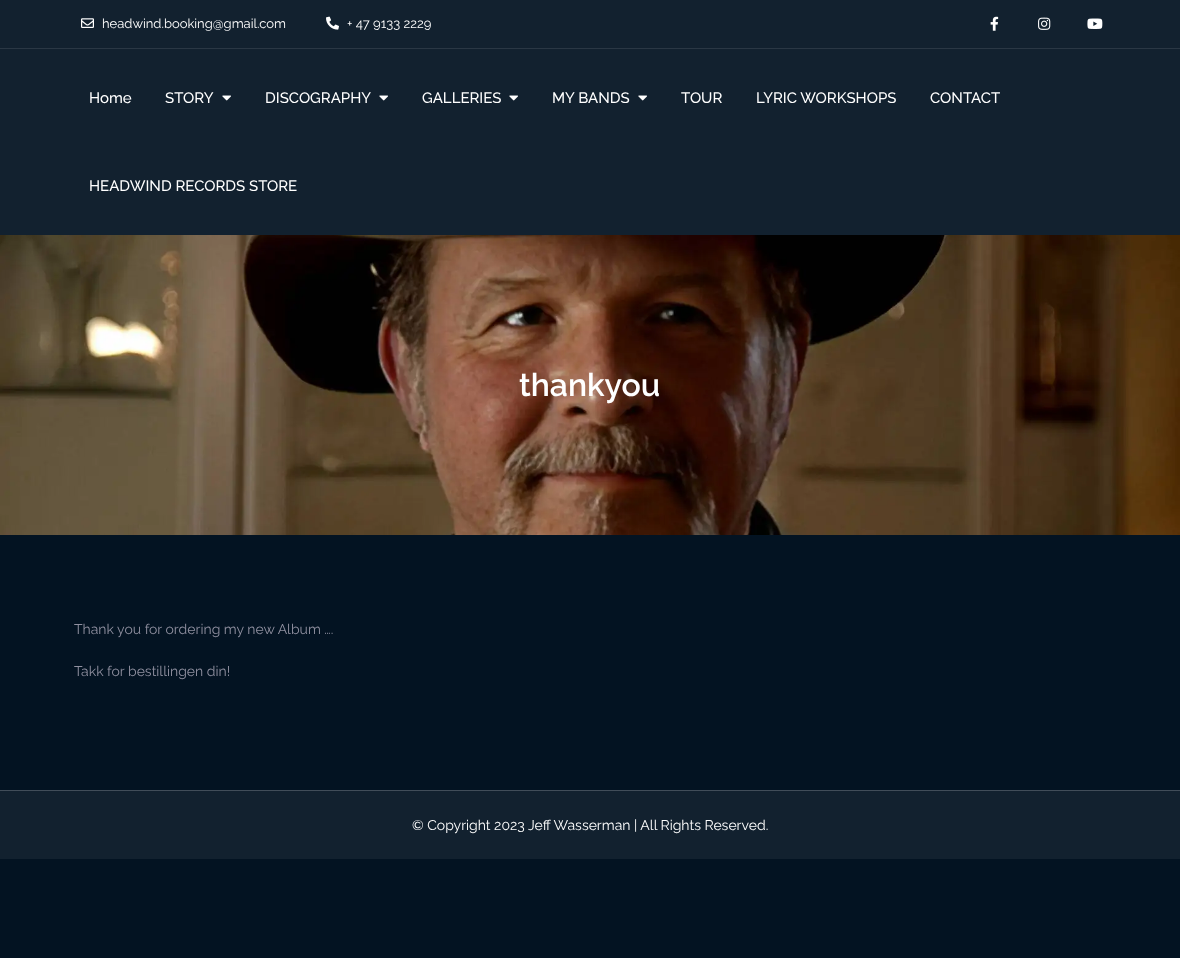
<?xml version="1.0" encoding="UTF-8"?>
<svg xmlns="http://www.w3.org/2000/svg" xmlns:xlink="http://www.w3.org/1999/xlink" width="1180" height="958">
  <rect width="100%" height="100%" fill="#031322" />
  <rect width="1180" height="48" fill="#12212f" />
  <rect y="48" width="1180" height="1" fill="#2a3744" />
  <image x="81" y="18" width="13" height="10" xlink:href="image1.png" />
  <image x="326" y="16" width="13" height="14" xlink:href="image2.png" />
  <image x="990" y="16" width="9" height="15" xlink:href="image3.png" />
  <image x="1038" y="17" width="13" height="13" xlink:href="image4.png" />
  <image x="1087" y="18" width="16" height="11" xlink:href="image5.png" />
  <rect y="49" width="1180" height="186" fill="#12212f" />
  <image x="222" y="95" width="9" height="6" xlink:href="image6.png" />
  <image x="379" y="95" width="9" height="6" xlink:href="image6.png" />
  <image x="509" y="95" width="9" height="6" xlink:href="image6.png" />
  <image x="638" y="95" width="9" height="6" xlink:href="image6.png" />
  <image x="0" y="235" width="1180" height="300" xlink:href="image7.png" />
  <rect y="791" width="1180" height="68" fill="#12212f" />
  <rect y="790" width="1180" height="1" fill="#414d59" />
  <text x="102" y="28" style="font-family: Raleway; font-size: 13px; fill: #ffffff">headwind.booking@gmail.com</text>
  <text x="347" y="28" style="font-family: Raleway; font-size: 13px; fill: #ffffff">+ 47 9133 2229</text>
  <text x="89" y="103" style="font-family: Raleway; font-size: 15px; font-weight: 500; fill: #ffffff">Home</text>
  <text x="165" y="103" style="font-family: Raleway; font-size: 15px; font-weight: 500; fill: #ffffff">STORY</text>
  <text x="265" y="103" style="font-family: Raleway; font-size: 15px; font-weight: 500; fill: #ffffff">DISCOGRAPHY</text>
  <text x="422" y="103" style="font-family: Raleway; font-size: 15px; font-weight: 500; fill: #ffffff">GALLERIES</text>
  <text x="552" y="103" style="font-family: Raleway; font-size: 15px; font-weight: 500; fill: #ffffff">MY BANDS</text>
  <text x="681" y="103" style="font-family: Raleway; font-size: 15px; font-weight: 500; fill: #ffffff">TOUR</text>
  <text x="756" y="103" style="font-family: Raleway; font-size: 15px; font-weight: 500; fill: #ffffff">LYRIC WORKSHOPS</text>
  <text x="930" y="103" style="font-family: Raleway; font-size: 15px; font-weight: 500; fill: #ffffff">CONTACT</text>
  <text x="89" y="191" style="font-family: Raleway; font-size: 15px; font-weight: 500; fill: #ffffff">HEADWIND RECORDS STORE</text>
  <text x="519" y="396" style="font-family: Raleway; font-size: 32px; font-weight: 600; fill: #ffffff">thankyou</text>
  <text x="74" y="634" style="font-family: Raleway; font-size: 14px; fill: #9090a0">Thank you for ordering my new Album ….</text>
  <text x="74" y="676" style="font-family: Raleway; font-size: 14px; fill: #9090a0">Takk for bestillingen din!</text>
  <text x="412" y="830" style="font-family: Raleway; font-size: 14px; fill: #ffffff">© Copyright 2023 Jeff Wasserman | All Rights Reserved.</text>
</svg>
